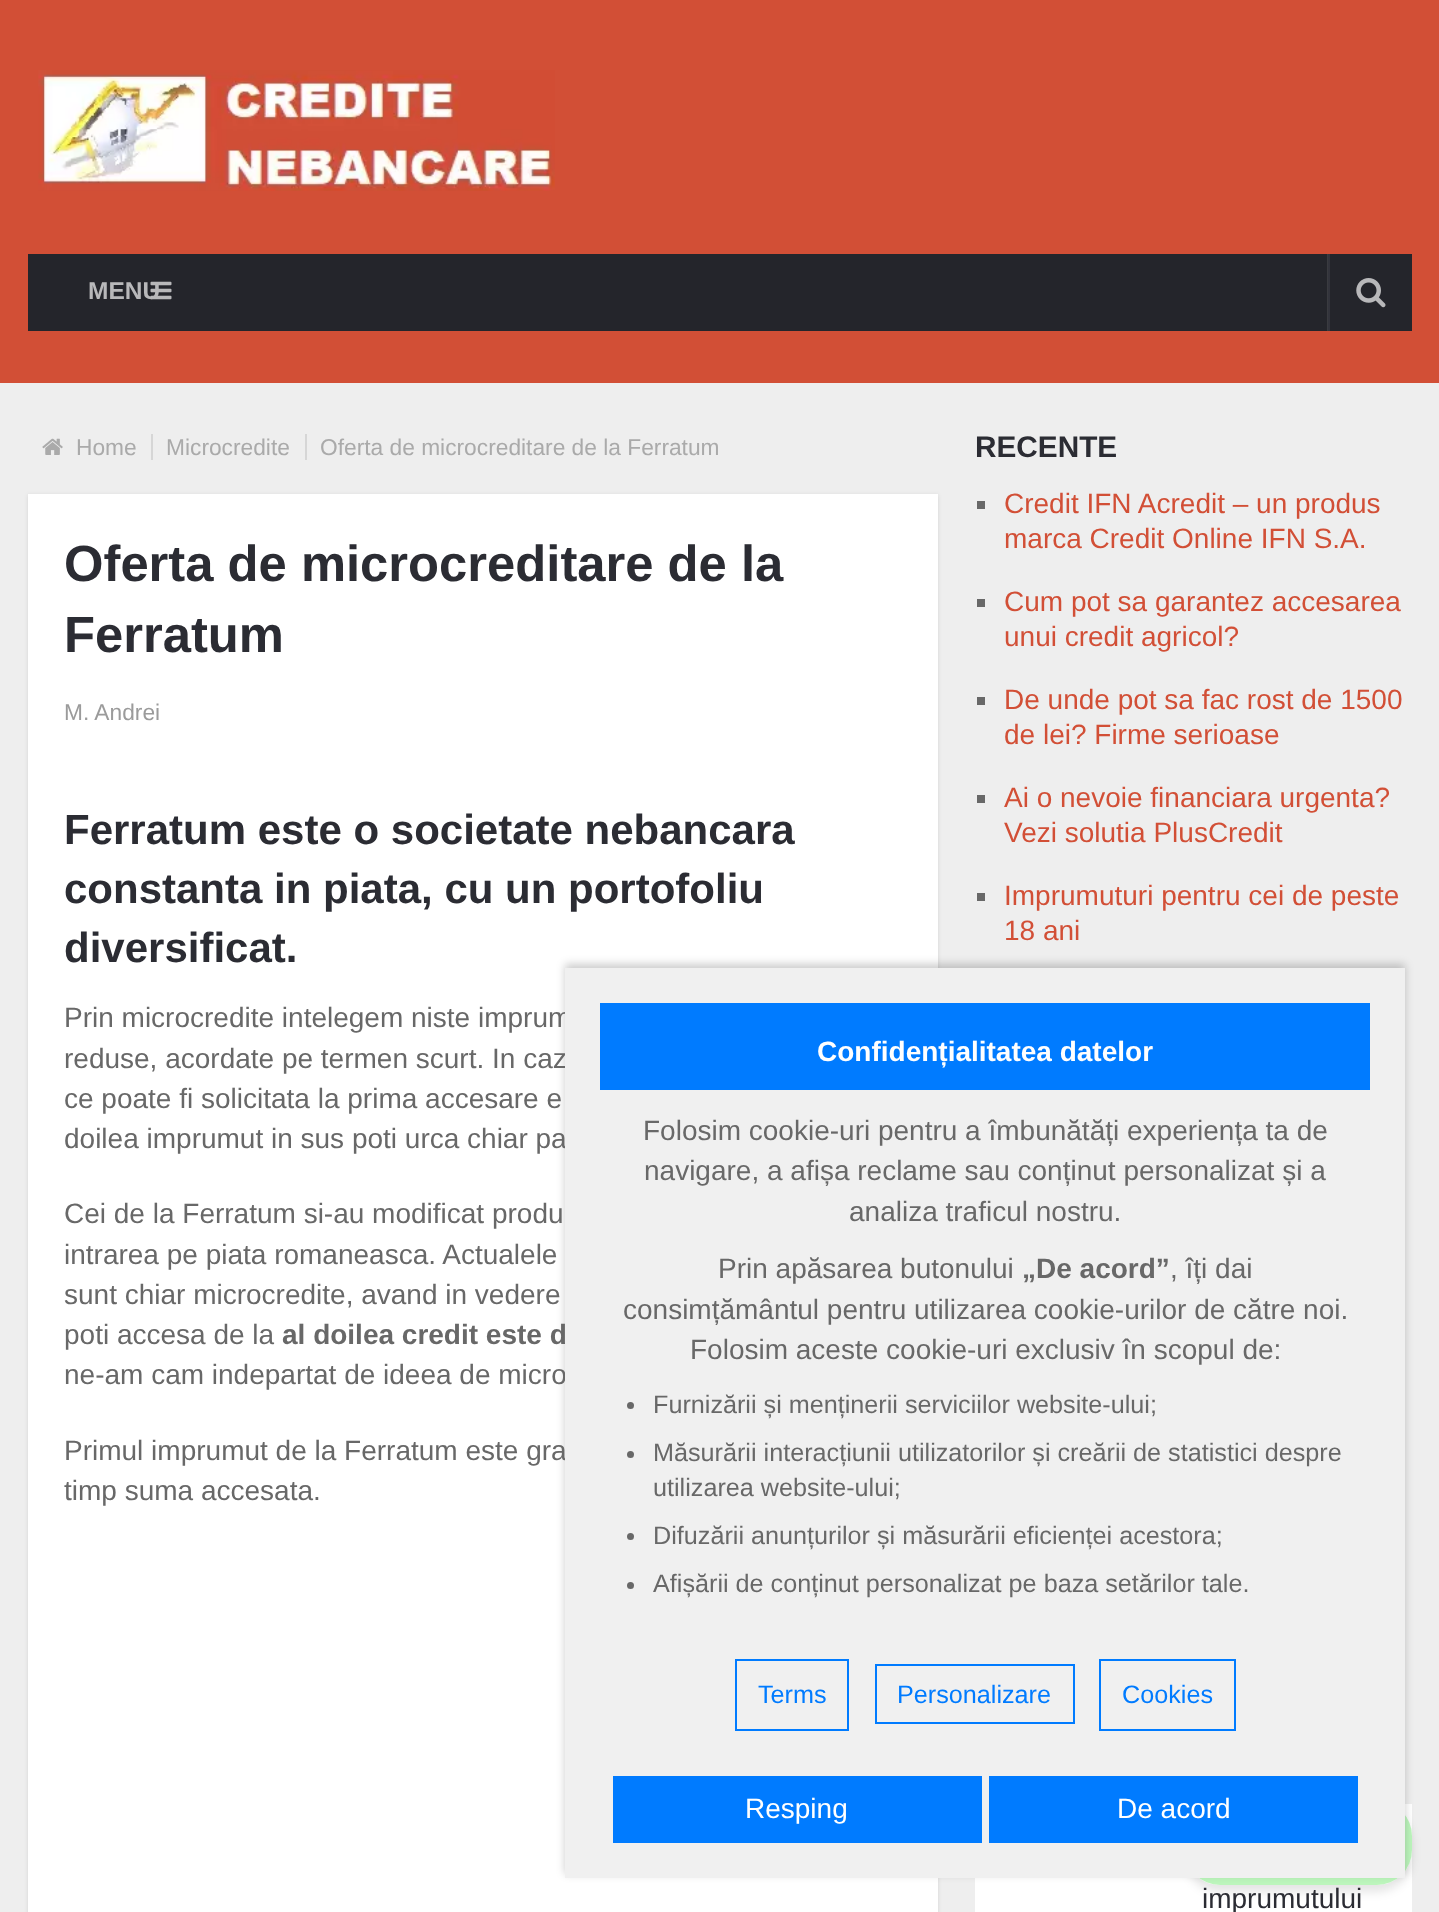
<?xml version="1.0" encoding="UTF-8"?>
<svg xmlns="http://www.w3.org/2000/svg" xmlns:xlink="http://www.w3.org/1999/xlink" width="1439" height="1912">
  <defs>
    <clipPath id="clip1"><path d="M 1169 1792 h 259 v 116 h -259 z m 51 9 h 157 c 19.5 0 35 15.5 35 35 v 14 c 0 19.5 -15.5 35 -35 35 h -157 c -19.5 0 -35 -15.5 -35 -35 v -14 c 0 -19.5 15.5 -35 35 -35 z" clip-rule="evenodd" /></clipPath>
  </defs>
  <rect width="100%" height="100%" fill="#eeeeee" />
  <rect width="1439" height="383" fill="#d24f36" />
  <image x="38" y="70" width="517" height="121" xlink:href="image1.png" />
  <rect x="28" y="254" width="1384" height="77" fill="#24252b" />
  <rect x="1327" y="254" width="1" height="77" fill="#3a3b40" />
  <rect x="1328" y="254" width="2" height="77" fill="#33343c" />
  <image x="1356" y="278" width="30" height="30" xlink:href="image3.png" />
  <image x="42" y="438" width="21" height="17" xlink:href="image4.png" />
  <rect x="151" y="434" width="2" height="26" fill="#d6d6d6" />
  <rect x="305" y="434" width="2" height="26" fill="#d6d6d6" />
  <rect x="28" y="495" width="910" height="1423" fill="#000000" fill-opacity="0.1" filter="blur(2px)" />
  <rect x="28" y="494" width="910" height="1418" fill="#ffffff" />
  <rect x="977" y="501" width="8" height="8" fill="#686868" />
  <rect x="977" y="599" width="8" height="8" fill="#686868" />
  <rect x="977" y="697" width="8" height="8" fill="#686868" />
  <rect x="977" y="795" width="8" height="8" fill="#686868" />
  <rect x="977" y="893" width="8" height="8" fill="#686868" />
  <rect x="975" y="1804" width="437" height="108" fill="#ffffff" />
  <g clip-path="url(#clip1)">
    <rect x="1185" y="1808" width="227" height="84" rx="35" fill="#000000" fill-opacity="0.1" filter="blur(5px)" />
  </g>
  <rect x="1185" y="1801" width="227" height="84" rx="35" fill="#90ee90" fill-opacity="0.6" />
  <rect x="565" y="964" width="840" height="910" fill="#000000" fill-opacity="0.2" filter="blur(4.5px)" />
  <text x="88" y="299" style="font-family: Liberation Sans; font-size: 24.5px; font-weight: bold; fill: #b8b8ba">MENU</text>
  <image x="150" y="281" width="22" height="19" xlink:href="image2.png" />
  <text x="76" y="455" style="font-family: Liberation Sans; font-size: 22.75px; fill: #aaaaaa">Home</text>
  <text x="166" y="455" style="font-family: Liberation Sans; font-size: 22.75px; fill: #aaaaaa">Microcredite</text>
  <text x="320" y="455" style="font-family: Liberation Sans; font-size: 22.75px; fill: #aaaaaa">Oferta de microcreditare de la Ferratum</text>
  <text x="64" y="581" style="font-family: Liberation Sans; font-size: 50.75px; font-weight: bold; fill: #2b2c33">Oferta de microcreditare de la</text>
  <text x="64" y="652" style="font-family: Liberation Sans; font-size: 50.75px; font-weight: bold; fill: #2b2c33">Ferratum</text>
  <text x="64" y="720" style="font-family: Liberation Sans; font-size: 22.75px; fill: #9b9b9b">M. Andrei</text>
  <text x="64" y="844" style="font-family: Liberation Sans; font-size: 42px; font-weight: bold; fill: #2b2c33">Ferratum este o societate nebancara</text>
  <text x="64" y="903" style="font-family: Liberation Sans; font-size: 42px; font-weight: bold; fill: #2b2c33">constanta in piata, cu un portofoliu</text>
  <text x="64" y="962" style="font-family: Liberation Sans; font-size: 42px; font-weight: bold; fill: #2b2c33">diversificat.</text>
  <text x="64" y="1027" style="font-family: Liberation Sans; font-size: 28px; fill: #686868">Prin microcredite intelegem niste imprum</text>
  <text x="64" y="1068" style="font-family: Liberation Sans; font-size: 28px; fill: #686868">reduse, acordate pe termen scurt. In caz</text>
  <text x="64" y="1108" style="font-family: Liberation Sans; font-size: 28px; fill: #686868">ce poate fi solicitata la prima accesare e</text>
  <text x="64" y="1148" style="font-family: Liberation Sans; font-size: 28px; fill: #686868">doilea imprumut in sus poti urca chiar pa</text>
  <text x="64" y="1223" style="font-family: Liberation Sans; font-size: 28px; fill: #686868">Cei de la Ferratum si-au modificat produ</text>
  <text x="64" y="1264" style="font-family: Liberation Sans; font-size: 28px; fill: #686868">intrarea pe piata romaneasca. Actualele</text>
  <text x="64" y="1304" style="font-family: Liberation Sans; font-size: 28px; fill: #686868">sunt chiar microcredite, avand in vedere</text>
  <text x="64" y="1344" style="font-family: Liberation Sans; font-size: 28px; fill: #686868">poti accesa de la</text>
  <text x="282" y="1344" style="font-family: Liberation Sans; font-size: 28px; font-weight: bold; fill: #686868">al doilea credit este d</text>
  <text x="64" y="1384" style="font-family: Liberation Sans; font-size: 28px; fill: #686868">ne-am cam indepartat de ideea de micro</text>
  <text x="64" y="1460" style="font-family: Liberation Sans; font-size: 28px; fill: #686868">Primul imprumut de la Ferratum este gra</text>
  <text x="64" y="1500" style="font-family: Liberation Sans; font-size: 28px; fill: #686868">timp suma accesata.</text>
  <text x="975" y="457" style="font-family: Liberation Sans; font-size: 29.75px; font-weight: bold; fill: #2b2c33">RECENTE</text>
  <text x="1004" y="513" style="font-family: Liberation Sans; font-size: 28px; fill: #d24f36">Credit IFN Acredit – un produs</text>
  <text x="1004" y="548" style="font-family: Liberation Sans; font-size: 28px; fill: #d24f36">marca Credit Online IFN S.A.</text>
  <text x="1004" y="611" style="font-family: Liberation Sans; font-size: 28px; fill: #d24f36">Cum pot sa garantez accesarea</text>
  <text x="1004" y="646" style="font-family: Liberation Sans; font-size: 28px; fill: #d24f36">unui credit agricol?</text>
  <text x="1004" y="709" style="font-family: Liberation Sans; font-size: 28px; fill: #d24f36">De unde pot sa fac rost de 1500</text>
  <text x="1004" y="744" style="font-family: Liberation Sans; font-size: 28px; fill: #d24f36">de lei? Firme serioase</text>
  <text x="1004" y="807" style="font-family: Liberation Sans; font-size: 28px; fill: #d24f36">Ai o nevoie financiara urgenta?</text>
  <text x="1004" y="842" style="font-family: Liberation Sans; font-size: 28px; fill: #d24f36">Vezi solutia PlusCredit</text>
  <text x="1004" y="905" style="font-family: Liberation Sans; font-size: 28px; fill: #d24f36">Imprumuturi pentru cei de peste</text>
  <text x="1004" y="940" style="font-family: Liberation Sans; font-size: 28px; fill: #d24f36">18 ani</text>
  <text x="1202" y="1908" style="font-family: Liberation Sans; font-size: 28px; fill: #2b2c33">imprumutului</text>
  <rect x="565" y="968" width="840" height="910" fill="#f0f0f0" />
  <rect x="600" y="1003" width="770" height="87" fill="#007bff" />
  <text x="817" y="1061" style="font-family: Liberation Sans; font-size: 28px; font-weight: bold; fill: #ffffff">Confidențialitatea datelor</text>
  <text x="643" y="1140" style="font-family: Liberation Sans; font-size: 28px; fill: #686868">Folosim cookie-uri pentru a îmbunătăți experiența ta de</text>
  <text x="644" y="1180" style="font-family: Liberation Sans; font-size: 28px; fill: #686868">navigare, a afișa reclame sau conținut personalizat și a</text>
  <text x="849" y="1221" style="font-family: Liberation Sans; font-size: 28px; fill: #686868">analiza traficul nostru.</text>
  <text x="718" y="1278" style="font-family: Liberation Sans; font-size: 28px; fill: #686868">Prin apăsarea butonului</text>
  <text x="1022" y="1278" style="font-family: Liberation Sans; font-size: 28px; font-weight: bold; fill: #686868">„De acord”</text>
  <text x="1170" y="1278" style="font-family: Liberation Sans; font-size: 28px; fill: #686868">, îți dai</text>
  <text x="623" y="1319" style="font-family: Liberation Sans; font-size: 28px; fill: #686868">consimțământul pentru utilizarea cookie-urilor de către noi.</text>
  <text x="690" y="1359" style="font-family: Liberation Sans; font-size: 28px; fill: #686868">Folosim aceste cookie-uri exclusiv în scopul de:</text>
  <circle cx="630.5" cy="1405.5" r="3.5" fill="#686868" />
  <text x="653" y="1413" style="font-family: Liberation Sans; font-size: 25.2px; fill: #686868">Furnizării și menținerii serviciilor website-ului;</text>
  <circle cx="630.5" cy="1454.5" r="3.5" fill="#686868" />
  <text x="653" y="1461" style="font-family: Liberation Sans; font-size: 25.2px; fill: #686868">Măsurării interacțiunii utilizatorilor și creării de statistici despre</text>
  <text x="653" y="1496" style="font-family: Liberation Sans; font-size: 25.2px; fill: #686868">utilizarea website-ului;</text>
  <circle cx="630.5" cy="1536.5" r="3.5" fill="#686868" />
  <text x="653" y="1544" style="font-family: Liberation Sans; font-size: 25.2px; fill: #686868">Difuzării anunțurilor și măsurării eficienței acestora;</text>
  <circle cx="630.5" cy="1585.5" r="3.5" fill="#686868" />
  <text x="653" y="1592" style="font-family: Liberation Sans; font-size: 25.2px; fill: #686868">Afișării de conținut personalizat pe baza setărilor tale.</text>
  <rect x="736" y="1660" width="112" height="70" fill="none" stroke="#007bff" stroke-width="2" />
  <text x="758" y="1703" style="font-family: Liberation Sans; font-size: 25.2px; fill: #007bff">Terms</text>
  <rect x="876" y="1665" width="198" height="58" fill="none" stroke="#007bff" stroke-width="2" />
  <text x="897" y="1703" style="font-family: Liberation Sans; font-size: 25.2px; fill: #007bff">Personalizare</text>
  <rect x="1100" y="1660" width="135" height="70" fill="none" stroke="#007bff" stroke-width="2" />
  <text x="1122" y="1703" style="font-family: Liberation Sans; font-size: 25.2px; fill: #007bff">Cookies</text>
  <rect x="613" y="1776" width="369" height="67" fill="#007bff" />
  <text x="745" y="1818" style="font-family: Liberation Sans; font-size: 28px; fill: #ffffff">Resping</text>
  <rect x="989" y="1776" width="369" height="67" fill="#007bff" />
  <text x="1117" y="1818" style="font-family: Liberation Sans; font-size: 28px; fill: #ffffff">De acord</text>
</svg>
